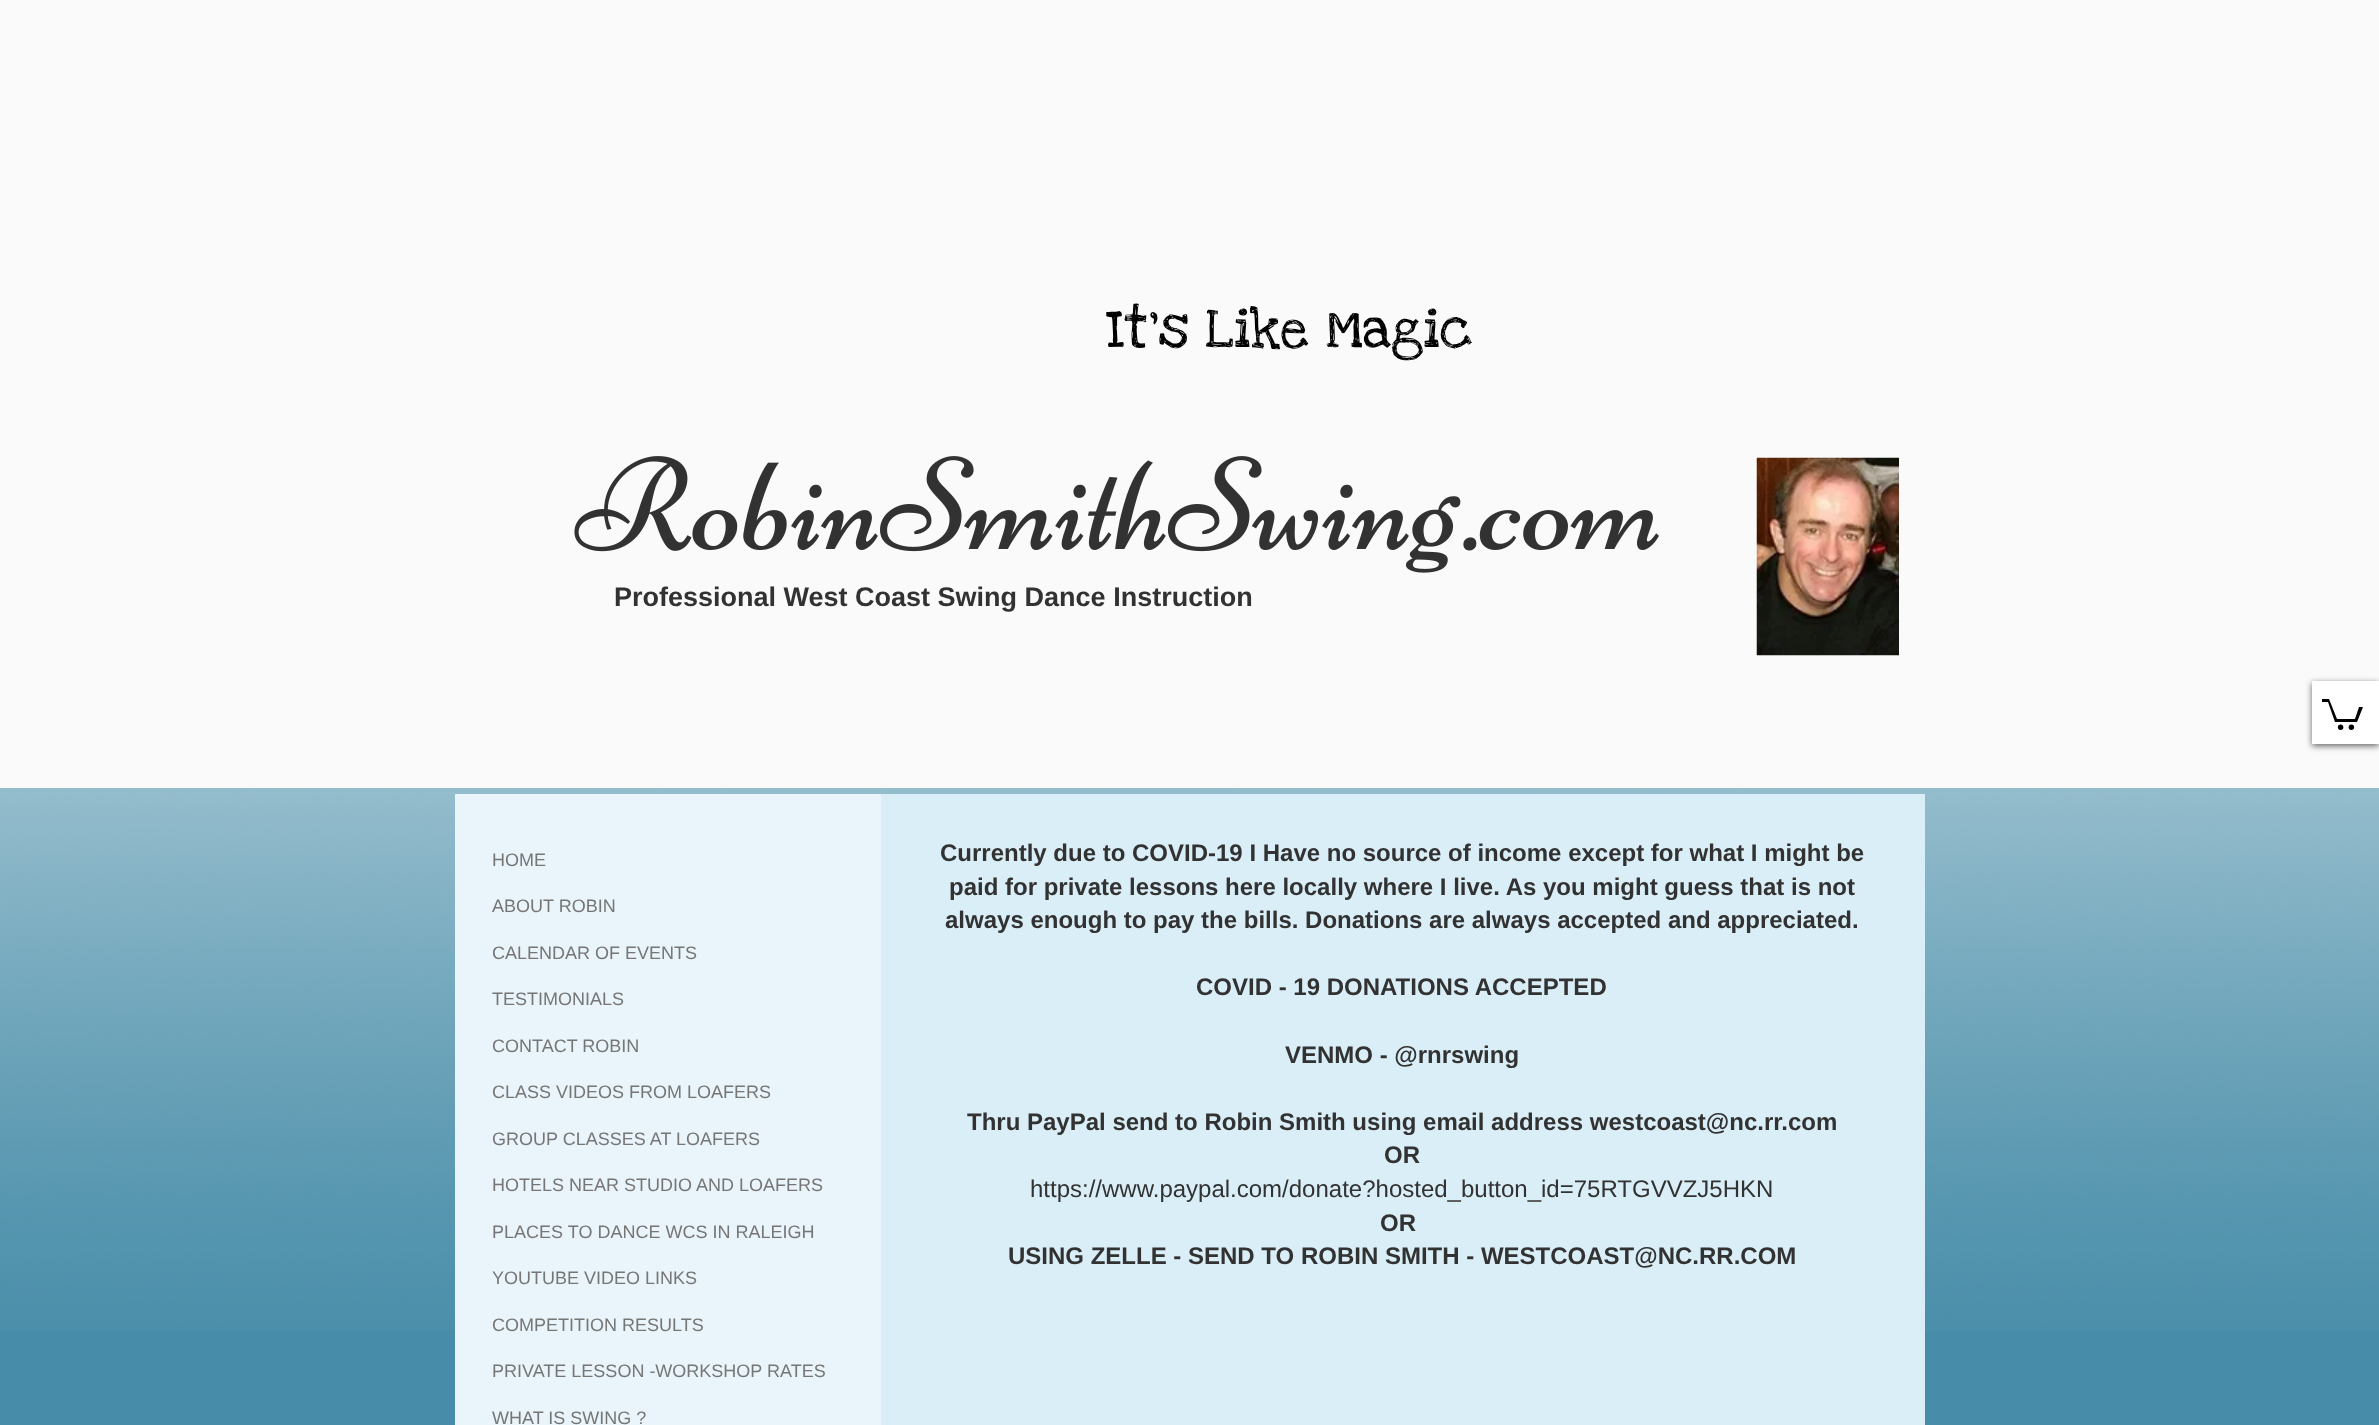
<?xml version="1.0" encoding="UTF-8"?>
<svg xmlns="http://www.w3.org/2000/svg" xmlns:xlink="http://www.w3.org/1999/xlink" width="2379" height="1425">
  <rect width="100%" height="100%" fill="#478da9" />
  <rect width="2379" height="788" fill="#fafafa" />
  <image x="574" y="456" width="1085" height="117" xlink:href="image1.png" />
  <image x="1756" y="457" width="143" height="199" xlink:href="image2.png" />
  <rect x="2312" y="683" width="67" height="63" fill="#000000" fill-opacity="0.6" filter="blur(3px)" />
  <rect x="2312" y="681" width="67" height="63" fill="#ffffff" />
  <path d="M 2363 707 l -6 15 h -22 l -7 -20 h -6 v -3 h 7 l 8 20 h 18 l 4 -12" fill="#000000" />
  <circle cx="2351.4" cy="727.3" r="2.7" fill="#000000" />
  <circle cx="2340.6" cy="727.3" r="2.7" fill="#000000" />
  <image x="0" y="788" width="2379" height="543" xlink:href="image3.png" />
  <rect x="455" y="794" width="426" height="631" fill="#eaf5fb" />
  <rect x="881" y="794" width="1044" height="631" fill="#daeef7" />
  <text x="1107" y="347" style="font-family: Love Ya Like A Sister; font-size: 55.5px; fill: #000000">It's Like Magic</text>
  <text x="614" y="606" style="font-family: Liberation Sans; font-size: 27px; font-weight: bold; fill: #323232">Professional West Coast Swing Dance Instruction</text>
  <text x="492" y="866" style="font-family: Liberation Sans; font-size: 18px; fill: #767676">HOME</text>
  <text x="492" y="912" style="font-family: Liberation Sans; font-size: 18px; fill: #767676">ABOUT ROBIN</text>
  <text x="492" y="959" style="font-family: Liberation Sans; font-size: 18px; fill: #767676">CALENDAR OF EVENTS</text>
  <text x="492" y="1005" style="font-family: Liberation Sans; font-size: 18px; fill: #767676">TESTIMONIALS</text>
  <text x="492" y="1052" style="font-family: Liberation Sans; font-size: 18px; fill: #767676">CONTACT ROBIN</text>
  <text x="492" y="1098" style="font-family: Liberation Sans; font-size: 18px; fill: #767676">CLASS VIDEOS FROM LOAFERS</text>
  <text x="492" y="1145" style="font-family: Liberation Sans; font-size: 18px; fill: #767676">GROUP CLASSES AT LOAFERS</text>
  <text x="492" y="1191" style="font-family: Liberation Sans; font-size: 18px; fill: #767676">HOTELS NEAR STUDIO AND LOAFERS</text>
  <text x="492" y="1238" style="font-family: Liberation Sans; font-size: 18px; fill: #767676">PLACES TO DANCE WCS IN RALEIGH</text>
  <text x="492" y="1284" style="font-family: Liberation Sans; font-size: 18px; fill: #767676">YOUTUBE VIDEO LINKS</text>
  <text x="492" y="1331" style="font-family: Liberation Sans; font-size: 18px; fill: #767676">COMPETITION RESULTS</text>
  <text x="492" y="1377" style="font-family: Liberation Sans; font-size: 18px; fill: #767676">PRIVATE LESSON -WORKSHOP RATES</text>
  <text x="492" y="1424" style="font-family: Liberation Sans; font-size: 18px; fill: #767676">WHAT IS SWING ?</text>
  <text x="940" y="861" style="font-family: Liberation Sans; font-size: 24px; font-weight: bold; fill: #323232">Currently due to COVID-19 I Have no source of income except for what I might be</text>
  <text x="949" y="895" style="font-family: Liberation Sans; font-size: 24px; font-weight: bold; fill: #323232">paid for private lessons here locally where I live. As you might guess that is not</text>
  <text x="945" y="928" style="font-family: Liberation Sans; font-size: 24px; font-weight: bold; fill: #323232">always enough to pay the bills. Donations are always accepted and appreciated.</text>
  <text x="1196" y="995" style="font-family: Liberation Sans; font-size: 24px; font-weight: bold; fill: #323232">COVID - 19 DONATIONS ACCEPTED</text>
  <text x="1285" y="1063" style="font-family: Liberation Sans; font-size: 24px; font-weight: bold; fill: #323232">VENMO - @rnrswing</text>
  <text x="967" y="1130" style="font-family: Liberation Sans; font-size: 24px; font-weight: bold; fill: #323232">Thru PayPal send to Robin Smith using email address westcoast@nc.rr.com</text>
  <text x="1384" y="1163" style="font-family: Liberation Sans; font-size: 24px; font-weight: bold; fill: #323232">OR</text>
  <text x="1030" y="1197" style="font-family: Liberation Sans; font-size: 24px; fill: #323232">https://www.paypal.com/donate?hosted_button_id=75RTGVVZJ5HKN</text>
  <text x="1380" y="1231" style="font-family: Liberation Sans; font-size: 24px; font-weight: bold; fill: #323232">OR</text>
  <text x="1008" y="1264" style="font-family: Liberation Sans; font-size: 24px; font-weight: bold; fill: #323232">USING ZELLE - SEND TO ROBIN SMITH - WESTCOAST@NC.RR.COM</text>
</svg>
